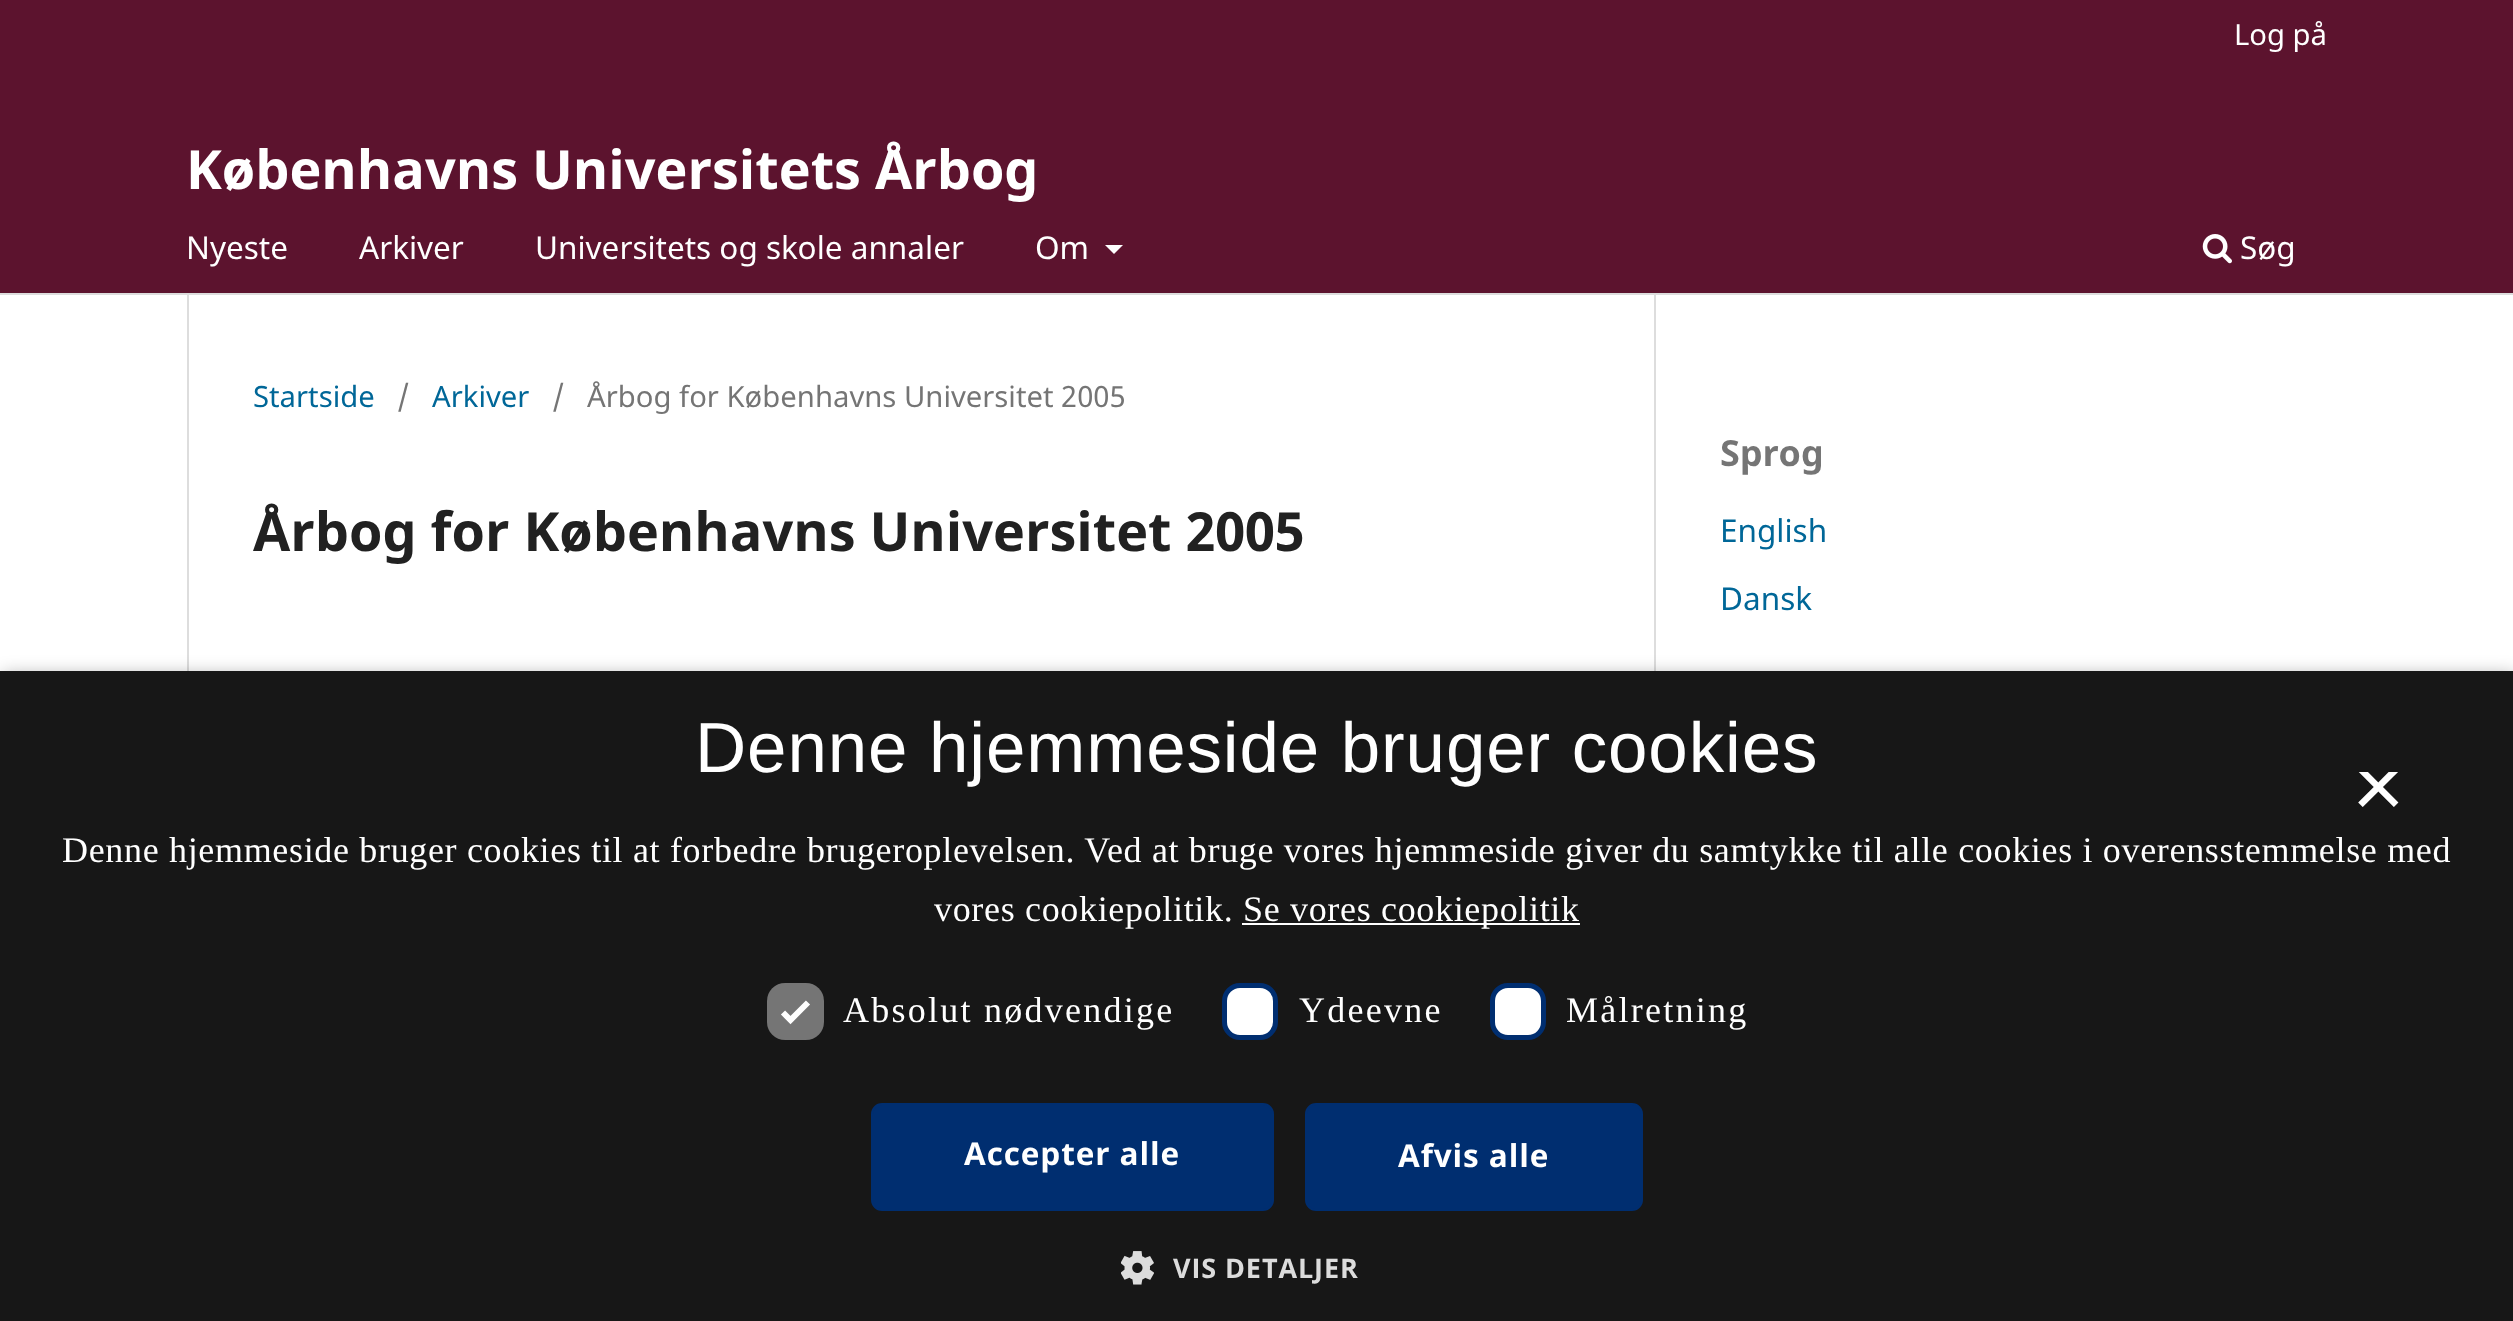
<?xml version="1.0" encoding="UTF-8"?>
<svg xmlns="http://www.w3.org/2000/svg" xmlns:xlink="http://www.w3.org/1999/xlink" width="2513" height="1321">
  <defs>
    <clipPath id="clip1"><rect x="2345" y="772" width="67" height="67" /></clipPath>
  </defs>
  <rect width="100%" height="100%" fill="#ffffff" />
  <rect width="2513" height="293" fill="#5c132e" />
  <rect y="293" width="2513" height="2" fill="#dddddd" />
  <path d="M 1105 245 h 18 l -9 9 z" fill="#ffffff" />
  <image x="2202" y="234" width="30" height="30" xlink:href="image1.png" />
  <rect x="187" y="295" width="2" height="376" fill="#dddddd" />
  <rect x="1654" y="295" width="2" height="376" fill="#dddddd" />
  <rect x="2" y="675" width="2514" height="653" fill="#000000" fill-opacity="0.35" filter="blur(9px)" />
  <rect y="671" width="2513" height="650" fill="#171717" />
  <rect x="1242" y="923" width="338" height="2" fill="#ffffff" />
  <rect x="767" y="983" width="57" height="57" rx="18" fill="#757575" />
  <path d="M 783 1012.5 l 7.5 7.5 l 17.5 -17.5" fill="none" stroke="#ffffff" stroke-width="5.9" />
  <rect x="1224.5" y="985.5" width="51" height="52" rx="15.5" fill="#ffffff" stroke="#002e70" stroke-width="5" />
  <rect x="1492.5" y="985.5" width="51" height="52" rx="15.5" fill="#ffffff" stroke="#002e70" stroke-width="5" />
  <rect x="872" y="1104" width="401" height="106" rx="10" fill="#002e70" stroke="#002e70" stroke-width="2" />
  <rect x="1306" y="1104" width="336" height="106" rx="10" fill="#002e70" stroke="#002e70" stroke-width="2" />
  <image x="1121" y="1251" width="33" height="34" xlink:href="image2.png" />
  <text x="2234" y="45" style="font-family: Noto Sans; font-size: 29.25px; fill: #ffffff">Log på</text>
  <text x="186" y="259" style="font-family: Noto Sans; font-size: 31.5px; fill: #ffffff">Nyeste</text>
  <text x="359" y="259" style="font-family: Noto Sans; font-size: 31.5px; fill: #ffffff">Arkiver</text>
  <text x="535" y="259" style="font-family: Noto Sans; font-size: 31.5px; fill: #ffffff">Universitets og skole annaler</text>
  <text x="1035" y="259" style="font-family: Noto Sans; font-size: 31.5px; fill: #ffffff">Om</text>
  <text x="2240" y="259" style="font-family: Noto Sans; font-size: 31.5px; fill: #ffffff">Søg</text>
  <text x="186" y="189" style="font-family: Noto Sans; font-size: 54px; font-weight: bold; fill: #ffffff">Københavns Universitets Årbog</text>
  <text x="253" y="407" style="font-family: Noto Sans; font-size: 29.25px; fill: #006798">Startside</text>
  <text x="397" y="407" style="font-family: Noto Sans; font-size: 29.25px; fill: #757575">/</text>
  <text x="432" y="407" style="font-family: Noto Sans; font-size: 29.25px; fill: #006798">Arkiver</text>
  <text x="552" y="407" style="font-family: Noto Sans; font-size: 29.25px; fill: #757575">/</text>
  <text x="587" y="407" style="font-family: Noto Sans; font-size: 29.25px; fill: #757575">Årbog for Københavns Universitet 2005</text>
  <text x="253" y="551" style="font-family: Noto Sans; font-size: 54px; font-weight: bold; fill: #212121">Årbog for Københavns Universitet 2005</text>
  <text x="1720" y="466" style="font-family: Noto Sans; font-size: 36px; font-weight: bold; fill: #757575">Sprog</text>
  <text x="1720" y="542" style="font-family: Noto Sans; font-size: 31.5px; fill: #006798">English</text>
  <text x="1720" y="610" style="font-family: Noto Sans; font-size: 31.5px; fill: #006798">Dansk</text>
  <text x="695" y="772" style="font-family: Liberation Sans; font-size: 70.9px; letter-spacing: 0.9px; fill: #ffffff">Denne hjemmeside bruger cookies</text>
  <g clip-path="url(#clip1)">
    <text x="2352" y="817" style="font-family: Liberation Sans; font-size: 90px; fill: #ffffff">×</text>
  </g>
  <text x="62" y="862" style="font-family: Liberation Serif; font-size: 36px; letter-spacing: 0.67px; fill: #ffffff">Denne hjemmeside bruger cookies til at forbedre brugeroplevelsen. Ved at bruge vores hjemmeside giver du samtykke til alle cookies i overensstemmelse med</text>
  <text x="934" y="921" style="font-family: Liberation Serif; font-size: 36px; letter-spacing: 0.67px; fill: #ffffff">vores cookiepolitik.</text>
  <text x="1243" y="921" style="font-family: Liberation Serif; font-size: 36px; letter-spacing: 0.67px; fill: #ffffff">Se vores cookiepolitik</text>
  <text x="843" y="1022" style="font-family: Liberation Serif; font-size: 36px; letter-spacing: 2.25px; fill: #ffffff">Absolut nødvendige</text>
  <text x="1299" y="1022" style="font-family: Liberation Serif; font-size: 36px; letter-spacing: 2.25px; fill: #ffffff">Ydeevne</text>
  <text x="1566" y="1022" style="font-family: Liberation Serif; font-size: 36px; letter-spacing: 2.25px; fill: #ffffff">Målretning</text>
  <text x="964" y="1165" style="font-family: Open Sans; font-size: 31.5px; font-weight: bold; letter-spacing: 0.9px; fill: #ffffff">Accepter alle</text>
  <text x="1398" y="1167" style="font-family: Open Sans; font-size: 31.5px; font-weight: bold; letter-spacing: 0.9px; fill: #ffffff">Afvis alle</text>
  <text x="1173" y="1278" style="font-family: Open Sans; font-size: 27px; font-weight: bold; letter-spacing: 0.9px; fill: #dcdcdc">VIS DETALJER</text>
</svg>
